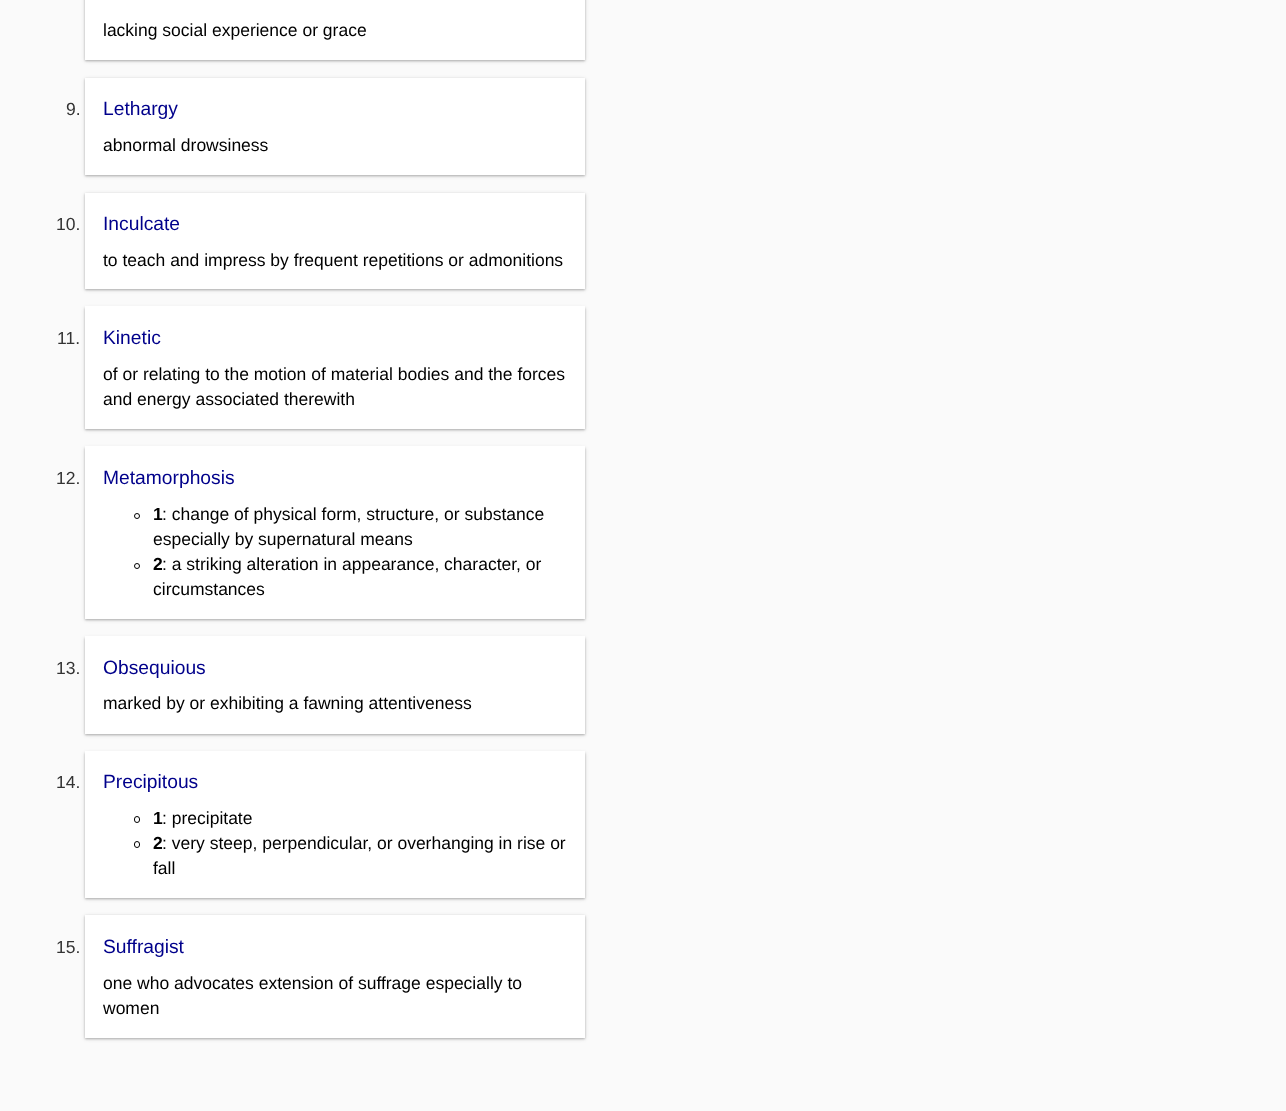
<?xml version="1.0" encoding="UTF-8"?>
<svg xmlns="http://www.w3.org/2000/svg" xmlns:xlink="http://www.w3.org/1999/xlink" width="1286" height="1111">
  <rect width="100%" height="100%" fill="#fafafa" />
  <rect x="85" y="-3" width="500" height="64" fill="#000000" fill-opacity="0.24" filter="blur(1px)" />
  <rect x="85" y="-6" width="500" height="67" fill="#000000" fill-opacity="0.12" filter="blur(2px)" />
  <rect x="85" width="500" height="60" fill="#ffffff" />
  <rect x="85" y="79" width="500" height="97" fill="#000000" fill-opacity="0.24" filter="blur(1px)" />
  <rect x="85" y="79" width="500" height="97" fill="#000000" fill-opacity="0.12" filter="blur(2px)" />
  <rect x="85" y="78" width="500" height="97" fill="#ffffff" />
  <rect x="85" y="194" width="500" height="96" fill="#000000" fill-opacity="0.24" filter="blur(1px)" />
  <rect x="85" y="194" width="500" height="96" fill="#000000" fill-opacity="0.12" filter="blur(2px)" />
  <rect x="85" y="193" width="500" height="96" fill="#ffffff" />
  <rect x="85" y="308" width="500" height="122" fill="#000000" fill-opacity="0.24" filter="blur(1px)" />
  <rect x="85" y="308" width="500" height="122" fill="#000000" fill-opacity="0.12" filter="blur(2px)" />
  <rect x="85" y="306" width="500" height="123" fill="#ffffff" />
  <rect x="85" y="448" width="500" height="172" fill="#000000" fill-opacity="0.24" filter="blur(1px)" />
  <rect x="85" y="448" width="500" height="172" fill="#000000" fill-opacity="0.12" filter="blur(2px)" />
  <rect x="85" y="446" width="500" height="173" fill="#ffffff" />
  <circle cx="137" cy="516" r="2.5" fill="none" stroke="#000000" />
  <circle cx="137" cy="566" r="2.5" fill="none" stroke="#000000" />
  <rect x="85" y="638" width="500" height="97" fill="#000000" fill-opacity="0.24" filter="blur(1px)" />
  <rect x="85" y="638" width="500" height="97" fill="#000000" fill-opacity="0.12" filter="blur(2px)" />
  <rect x="85" y="636" width="500" height="98" fill="#ffffff" />
  <rect x="85" y="753" width="500" height="146" fill="#000000" fill-opacity="0.24" filter="blur(1px)" />
  <rect x="85" y="753" width="500" height="146" fill="#000000" fill-opacity="0.12" filter="blur(2px)" />
  <rect x="85" y="751" width="500" height="147" fill="#ffffff" />
  <rect x="134.5" y="816.5" width="5" height="6" rx="2.5" fill="none" stroke="#000000" />
  <rect x="134.5" y="841.5" width="5" height="6" rx="2.5" fill="none" stroke="#000000" />
  <rect x="85" y="916" width="500" height="123" fill="#000000" fill-opacity="0.24" filter="blur(1px)" />
  <rect x="85" y="916" width="500" height="123" fill="#000000" fill-opacity="0.12" filter="blur(2px)" />
  <rect x="85" y="915" width="500" height="123" fill="#ffffff" />
  <text x="103" y="36" style="font-family: Liberation Sans; font-size: 17.5px; fill: #000000">lacking social experience or grace</text>
  <text x="66" y="115" style="font-family: Liberation Sans; font-size: 17.5px; fill: #333333">9.</text>
  <text x="103" y="115" style="font-family: Liberation Sans; font-size: 19.25px; fill: #00008b">Lethargy</text>
  <text x="103" y="151" style="font-family: Liberation Sans; font-size: 17.5px; fill: #000000">abnormal drowsiness</text>
  <text x="56" y="230" style="font-family: Liberation Sans; font-size: 17.5px; fill: #333333">10.</text>
  <text x="103" y="230" style="font-family: Liberation Sans; font-size: 19.25px; fill: #00008b">Inculcate</text>
  <text x="103" y="266" style="font-family: Liberation Sans; font-size: 17.5px; fill: #000000">to teach and impress by frequent repetitions or admonitions</text>
  <text x="57" y="344" style="font-family: Liberation Sans; font-size: 17.5px; fill: #333333">11.</text>
  <text x="103" y="344" style="font-family: Liberation Sans; font-size: 19.25px; fill: #00008b">Kinetic</text>
  <text x="103" y="380" style="font-family: Liberation Sans; font-size: 17.5px; fill: #000000">of or relating to the motion of material bodies and the forces</text>
  <text x="103" y="405" style="font-family: Liberation Sans; font-size: 17.5px; fill: #000000">and energy associated therewith</text>
  <text x="56" y="484" style="font-family: Liberation Sans; font-size: 17.5px; fill: #333333">12.</text>
  <text x="103" y="484" style="font-family: Liberation Sans; font-size: 19.25px; fill: #00008b">Metamorphosis</text>
  <text x="153" y="520" style="font-family: Liberation Sans; font-size: 17.5px; font-weight: bold; fill: #000000">1</text>
  <text x="162" y="520" style="font-family: Liberation Sans; font-size: 17.5px; fill: #000000">: change of physical form, structure, or substance</text>
  <text x="153" y="545" style="font-family: Liberation Sans; font-size: 17.5px; fill: #000000">especially by supernatural means</text>
  <text x="153" y="570" style="font-family: Liberation Sans; font-size: 17.5px; font-weight: bold; fill: #000000">2</text>
  <text x="162" y="570" style="font-family: Liberation Sans; font-size: 17.5px; fill: #000000">: a striking alteration in appearance, character, or</text>
  <text x="153" y="595" style="font-family: Liberation Sans; font-size: 17.5px; fill: #000000">circumstances</text>
  <text x="56" y="674" style="font-family: Liberation Sans; font-size: 17.5px; fill: #333333">13.</text>
  <text x="103" y="674" style="font-family: Liberation Sans; font-size: 19.25px; fill: #00008b">Obsequious</text>
  <text x="103" y="709" style="font-family: Liberation Sans; font-size: 17.5px; fill: #000000">marked by or exhibiting a fawning attentiveness</text>
  <text x="56" y="788" style="font-family: Liberation Sans; font-size: 17.5px; fill: #333333">14.</text>
  <text x="103" y="788" style="font-family: Liberation Sans; font-size: 19.25px; fill: #00008b">Precipitous</text>
  <text x="153" y="824" style="font-family: Liberation Sans; font-size: 17.5px; font-weight: bold; fill: #000000">1</text>
  <text x="162" y="824" style="font-family: Liberation Sans; font-size: 17.5px; fill: #000000">: precipitate</text>
  <text x="153" y="849" style="font-family: Liberation Sans; font-size: 17.5px; font-weight: bold; fill: #000000">2</text>
  <text x="162" y="849" style="font-family: Liberation Sans; font-size: 17.5px; fill: #000000">: very steep, perpendicular, or overhanging in rise or</text>
  <text x="153" y="874" style="font-family: Liberation Sans; font-size: 17.5px; fill: #000000">fall</text>
  <text x="56" y="953" style="font-family: Liberation Sans; font-size: 17.5px; fill: #333333">15.</text>
  <text x="103" y="953" style="font-family: Liberation Sans; font-size: 19.25px; fill: #00008b">Suffragist</text>
  <text x="103" y="989" style="font-family: Liberation Sans; font-size: 17.5px; fill: #000000">one who advocates extension of suffrage especially to</text>
  <text x="103" y="1014" style="font-family: Liberation Sans; font-size: 17.5px; fill: #000000">women</text>
</svg>
